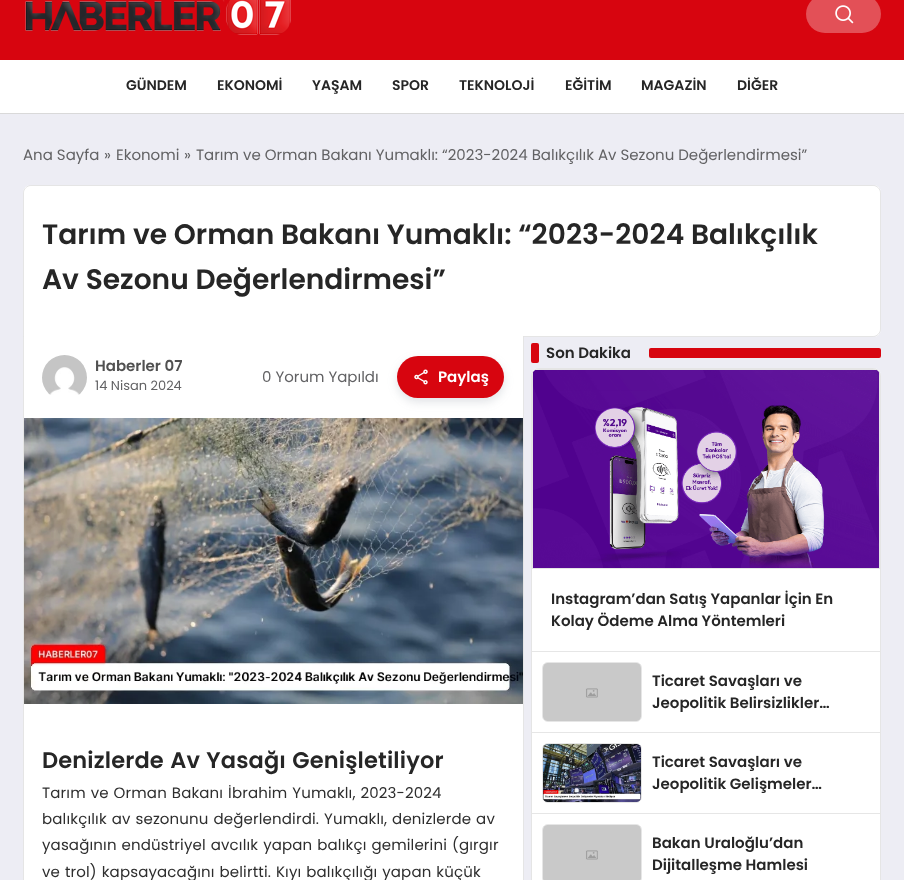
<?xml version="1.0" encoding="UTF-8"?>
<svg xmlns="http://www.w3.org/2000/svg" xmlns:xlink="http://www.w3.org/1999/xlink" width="904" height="880">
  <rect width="100%" height="100%" fill="#ededf4" />
  <rect width="904" height="60" fill="#d7050f" />
  <image x="25" y="0" width="266" height="35" xlink:href="image1.png" />
  <rect x="806" y="-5" width="75" height="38" rx="19" fill="#e35057" />
  <image x="835" y="5" width="19" height="19" xlink:href="image2.png" />
  <rect y="60" width="904" height="53" fill="#ffffff" />
  <rect y="113" width="904" height="1" fill="#d9d9d9" />
  <path d="M 31 185 h 842 c 4.5 0 8 3.5 8 8 v 136 c 0 4.5 -3.5 8 -8 8 h -850 v -144 c 0 -4.5 3.5 -8 8 -8 z" fill="#ffffff" />
  <path d="M 31 185.5 h 842 c 4 0 7.5 3.5 7.5 7.5 v 136 c 0 4 -3.5 7.5 -7.5 7.5 h -849.5 v -143.5 c 0 -4 3.5 -7.5 7.5 -7.5 z" fill="none" stroke="#000000" stroke-opacity="0.1" />
  <path d="M 24 336 h 499 c 0.5 0 1 0.5 1 1 v 543 c 0 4.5 -3.5 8 -8 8 h -485 c -4.5 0 -8 -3.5 -8 -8 v -543 c 0 -0.5 0.5 -1 1 -1 z" fill="#ffffff" />
  <path d="M 24 336 h 499 c 1 0 1 0 1 1 v 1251 c 0 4 -3 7 -8 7 h -486 c -4 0 -7 -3 -7 -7 v -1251 c 0 -1 0 -1 1 -1 z m 0 0 h 499 v 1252 c 0 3 -3 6 -7 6 h -486 c -3 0 -6 -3 -6 -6 z" fill="#000000" fill-opacity="0.1" fill-rule="evenodd" />
  <image x="42" y="355" width="45" height="40" xlink:href="image3.png" />
  <rect x="397" y="360" width="107" height="42" rx="21" fill="#6b7280" fill-opacity="0.2" filter="blur(5px)" />
  <rect x="397" y="356" width="107" height="42" rx="21" fill="#d7050f" />
  <image x="414" y="369" width="14" height="16" xlink:href="image4.png" />
  <image x="24" y="418" width="499" height="286" xlink:href="image5.png" />
  <rect x="531" y="343" width="8" height="20" rx="2" fill="#d7050f" />
  <rect x="649" y="348" width="232" height="10" rx="2" fill="#d7050f" />
  <rect x="531" y="368" width="350" height="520" rx="8" fill="#ffffff" />
  <rect x="531.5" y="368.5" width="349" height="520" rx="7.5" fill="none" stroke="#000000" stroke-opacity="0.1" />
  <rect x="532" y="651" width="348" height="1" fill="#e6e6e6" />
  <path d="M 532 376 v 193 h 348 v -193 c 0 -1 0 -3 -1 -4 v 196 h -346 v -196 z m 7 -7 l -4 1 h 342 l -4 -1 z" fill="#000000" fill-opacity="0.1" fill-rule="evenodd" />
  <image x="533" y="370" width="346" height="198" xlink:href="image6.png" />
  <rect x="532" y="732" width="348" height="1" fill="#e6e6e6" />
  <rect x="542.5" y="662.5" width="99" height="59" rx="5.5" fill="none" stroke="#e6e6e6" />
  <image x="543" y="663" width="98" height="58" xlink:href="image7.png" />
  <rect x="532" y="813" width="348" height="1" fill="#e6e6e6" />
  <rect x="542.5" y="743.5" width="99" height="59" rx="5.5" fill="none" stroke="#e6e6e6" />
  <image x="543" y="744" width="98" height="58" xlink:href="image8.png" />
  <rect x="542.5" y="824.5" width="99" height="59" rx="5.5" fill="none" stroke="#e6e6e6" />
  <image x="543" y="825" width="98" height="55" xlink:href="image9.png" />
  <text x="126" y="90" style="font-family: Poppins; font-size: 14px; font-weight: 600; fill: #262626">GÜNDEM</text>
  <text x="217" y="90" style="font-family: Poppins; font-size: 14px; font-weight: 600; fill: #262626">EKONOMİ</text>
  <text x="312" y="90" style="font-family: Poppins; font-size: 14px; font-weight: 600; fill: #262626">YAŞAM</text>
  <text x="392" y="90" style="font-family: Poppins; font-size: 14px; font-weight: 600; fill: #262626">SPOR</text>
  <text x="459" y="90" style="font-family: Poppins; font-size: 14px; font-weight: 600; fill: #262626">TEKNOLOJİ</text>
  <text x="565" y="90" style="font-family: Poppins; font-size: 14px; font-weight: 600; fill: #262626">EĞİTİM</text>
  <text x="641" y="90" style="font-family: Poppins; font-size: 14px; font-weight: 600; fill: #262626">MAGAZİN</text>
  <text x="737" y="90" style="font-family: Poppins; font-size: 14px; font-weight: 600; fill: #262626">DİĞER</text>
  <text x="23" y="160" style="font-family: Poppins; font-size: 15px; fill: #626264">Ana Sayfa</text>
  <text x="104" y="160" style="font-family: Poppins; font-size: 15px; fill: #626264">»</text>
  <text x="116" y="160" style="font-family: Poppins; font-size: 15px; fill: #626264">Ekonomi</text>
  <text x="184" y="160" style="font-family: Poppins; font-size: 15px; fill: #626264">»</text>
  <text x="196" y="160" style="font-family: Poppins; font-size: 15px; fill: #626264">Tarım ve Orman Bakanı Yumaklı: “2023-2024 Balıkçılık Av Sezonu Değerlendirmesi”</text>
  <text x="42" y="244" style="font-family: Poppins; font-size: 28.1px; font-weight: 600; fill: #262626">Tarım ve Orman Bakanı Yumaklı: “2023-2024 Balıkçılık</text>
  <text x="42" y="289" style="font-family: Poppins; font-size: 28.1px; font-weight: 600; fill: #262626">Av Sezonu Değerlendirmesi”</text>
  <text x="95" y="371" style="font-family: Poppins; font-size: 15px; font-weight: 600; fill: #515151">Haberler 07</text>
  <text x="95" y="390" style="font-family: Poppins; font-size: 13px; fill: #626264">14 Nisan 2024</text>
  <text x="262" y="382" style="font-family: Poppins; font-size: 15px; fill: #626264">0 Yorum Yapıldı</text>
  <text x="438" y="382" style="font-family: Poppins; font-size: 15px; font-weight: 600; fill: #ffffff">Paylaş</text>
  <text x="42" y="768" word-spacing="0.75" style="font-family: Poppins; font-size: 22.5px; font-weight: 600; letter-spacing: 0.15px; fill: #262626">Denizlerde Av Yasağı Genişletiliyor</text>
  <text x="42" y="798" word-spacing="0.75" style="font-family: Poppins; font-size: 15px; letter-spacing: 0.15px; fill: #2e2e2e">Tarım ve Orman Bakanı İbrahim Yumaklı, 2023-2024</text>
  <text x="42" y="824" word-spacing="0.75" style="font-family: Poppins; font-size: 15px; letter-spacing: 0.15px; fill: #2e2e2e">balıkçılık av sezonunu değerlendirdi. Yumaklı, denizlerde av</text>
  <text x="42" y="850" word-spacing="0.75" style="font-family: Poppins; font-size: 15px; letter-spacing: 0.15px; fill: #2e2e2e">yasağının endüstriyel avcılık yapan balıkçı gemilerini (gırgır</text>
  <text x="42" y="877" word-spacing="0.75" style="font-family: Poppins; font-size: 15px; letter-spacing: 0.15px; fill: #2e2e2e">ve trol) kapsayacağını belirtti. Kıyı balıkçılığı yapan küçük</text>
  <text x="546" y="358" style="font-family: Poppins; font-size: 15px; font-weight: 600; fill: #262626">Son Dakika</text>
  <text x="551" y="604" style="font-family: Poppins; font-size: 15px; font-weight: 600; fill: #262626">Instagram’dan Satış Yapanlar İçin En</text>
  <text x="551" y="626" style="font-family: Poppins; font-size: 15px; font-weight: 600; fill: #262626">Kolay Ödeme Alma Yöntemleri</text>
  <text x="652" y="686" style="font-family: Poppins; font-size: 15px; font-weight: 600; fill: #262626">Ticaret Savaşları ve</text>
  <text x="652" y="708" style="font-family: Poppins; font-size: 15px; font-weight: 600; fill: #262626">Jeopolitik Belirsizlikler…</text>
  <text x="652" y="767" style="font-family: Poppins; font-size: 15px; font-weight: 600; fill: #262626">Ticaret Savaşları ve</text>
  <text x="652" y="789" style="font-family: Poppins; font-size: 15px; font-weight: 600; fill: #262626">Jeopolitik Gelişmeler…</text>
  <text x="652" y="848" style="font-family: Poppins; font-size: 15px; font-weight: 600; fill: #262626">Bakan Uraloğlu’dan</text>
  <text x="652" y="870" style="font-family: Poppins; font-size: 15px; font-weight: 600; fill: #262626">Dijitalleşme Hamlesi</text>
</svg>
